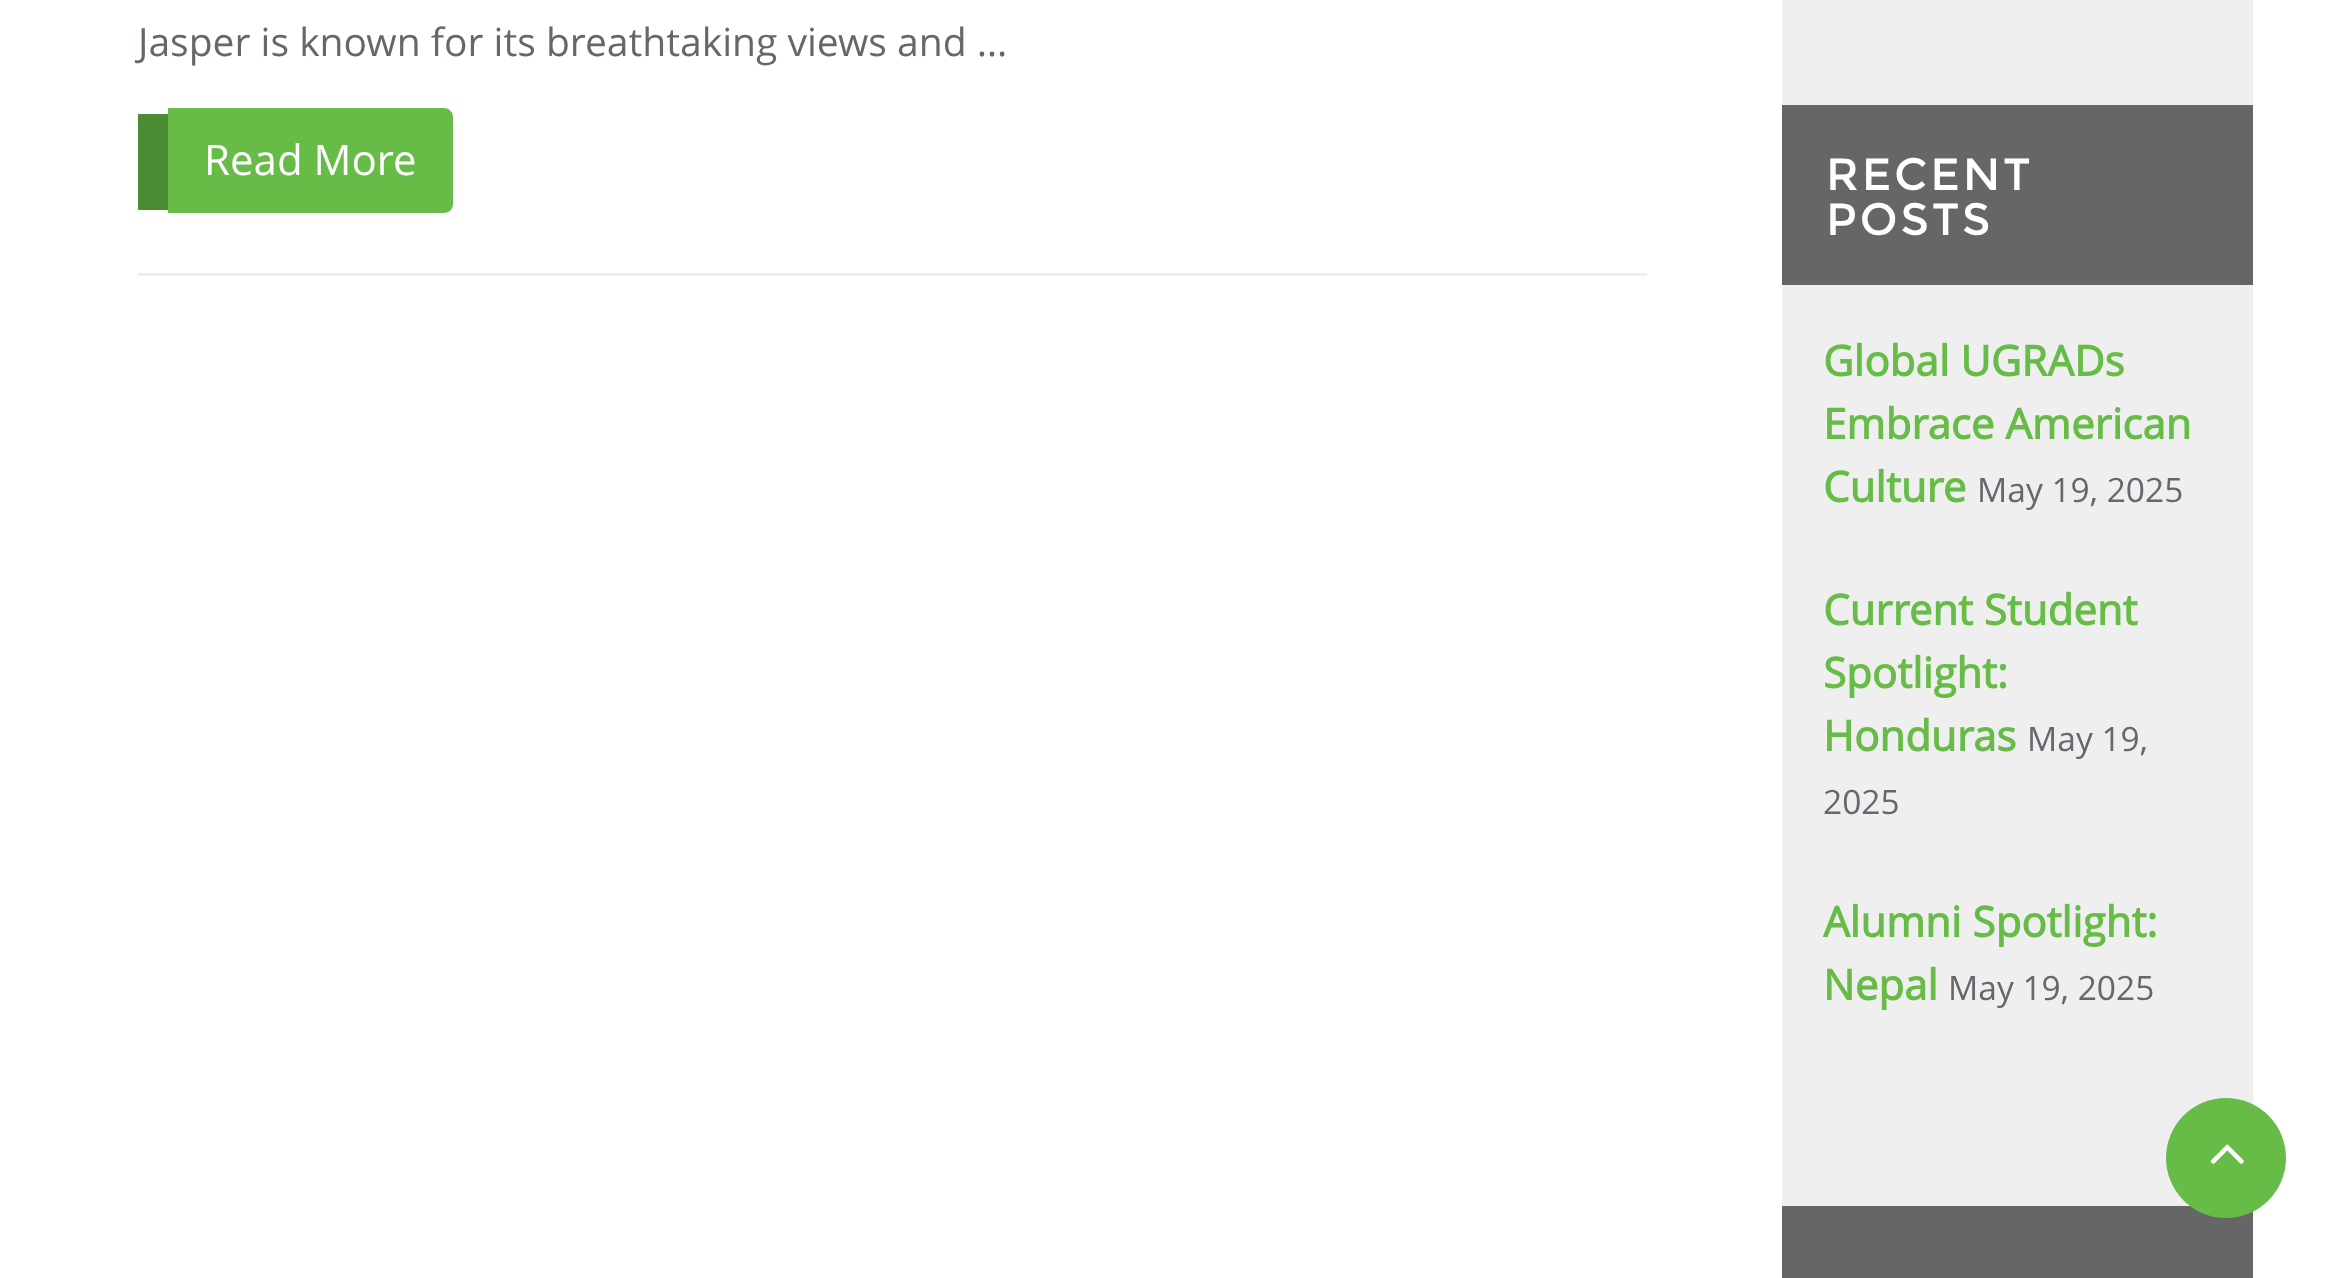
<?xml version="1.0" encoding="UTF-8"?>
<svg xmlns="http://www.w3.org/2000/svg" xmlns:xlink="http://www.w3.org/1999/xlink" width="2346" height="1278">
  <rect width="100%" height="100%" fill="#ffffff" />
  <path d="M 168 108 h 276 c 5 0 9 4 9 9 v 87 c 0 5 -4 9 -9 9 h -276 z" fill="#66bc46" />
  <rect x="138" y="114" width="30" height="96" fill="#4b8b34" />
  <rect x="138" y="273" width="1509" height="3" fill="#eeeeee" />
  <rect x="1782" width="471" height="1206" fill="#efefef" />
  <rect x="1782" y="105" width="471" height="180" fill="#666666" />
  <rect x="1782" y="1206" width="471" height="72" fill="#666666" />
  <circle cx="2226" cy="1158" r="60" fill="#66bc46" />
  <image x="2210" y="1144" width="34" height="20" xlink:href="image1.png" />
  <text x="138" y="56" style="font-family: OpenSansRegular; font-size: 39px; fill: #64686d">Jasper is known for its breathtaking views and …</text>
  <text x="204" y="175" style="font-family: OpenSansRegular; font-size: 42px; fill: #ffffff">Read More</text>
  <text x="1826" y="190" style="font-family: Montserrat; font-size: 45px; letter-spacing: 3px; fill: #ffffff">RECENT</text>
  <text x="1826" y="235" style="font-family: Montserrat; font-size: 45px; letter-spacing: 3px; fill: #ffffff">POSTS</text>
  <text x="1823" y="376" style="font-family: OpenSansRegular; font-size: 42px; font-weight: bold; fill: #66bc46">Global UGRADs</text>
  <text x="1823" y="439" style="font-family: OpenSansRegular; font-size: 42px; font-weight: bold; fill: #66bc46">Embrace American</text>
  <text x="1823" y="502" style="font-family: OpenSansRegular; font-size: 42px; font-weight: bold; fill: #66bc46">Culture</text>
  <text x="1977" y="502" style="font-family: OpenSansRegular; font-size: 33.5px; fill: #64686d">May 19, 2025</text>
  <text x="1823" y="625" style="font-family: OpenSansRegular; font-size: 42px; font-weight: bold; fill: #66bc46">Current Student</text>
  <text x="1823" y="688" style="font-family: OpenSansRegular; font-size: 42px; font-weight: bold; fill: #66bc46">Spotlight:</text>
  <text x="1823" y="751" style="font-family: OpenSansRegular; font-size: 42px; font-weight: bold; fill: #66bc46">Honduras</text>
  <text x="2027" y="751" style="font-family: OpenSansRegular; font-size: 33.5px; fill: #64686d">May 19,</text>
  <text x="1823" y="814" style="font-family: OpenSansRegular; font-size: 33.5px; fill: #64686d">2025</text>
  <text x="1823" y="937" style="font-family: OpenSansRegular; font-size: 42px; font-weight: bold; fill: #66bc46">Alumni Spotlight:</text>
  <text x="1823" y="1000" style="font-family: OpenSansRegular; font-size: 42px; font-weight: bold; fill: #66bc46">Nepal</text>
  <text x="1948" y="1000" style="font-family: OpenSansRegular; font-size: 33.5px; fill: #64686d">May 19, 2025</text>
</svg>
